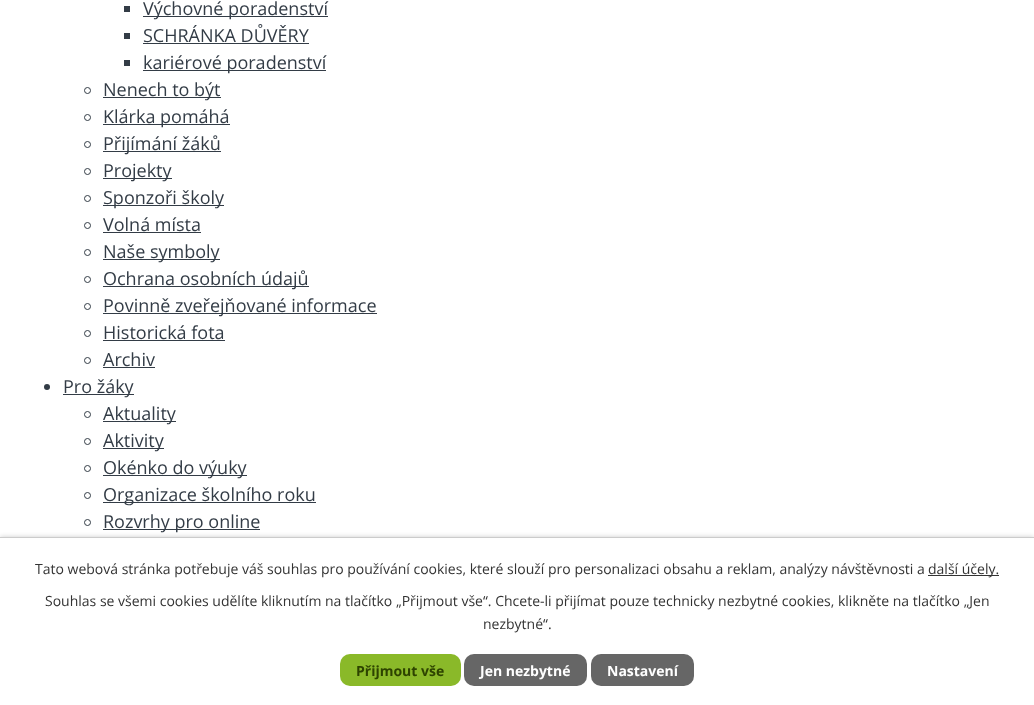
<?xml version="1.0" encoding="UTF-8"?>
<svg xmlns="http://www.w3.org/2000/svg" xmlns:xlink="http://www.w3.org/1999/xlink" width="1034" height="705">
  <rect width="100%" height="100%" fill="#ffffff" />
  <rect x="124" y="6" width="6" height="6" fill="#333c46" />
  <rect x="143" y="16" width="185" height="1" fill="#333c46" />
  <rect x="124" y="33" width="6" height="6" fill="#333c46" />
  <rect x="143" y="43" width="166" height="1" fill="#333c46" />
  <rect x="124" y="60" width="6" height="6" fill="#333c46" />
  <rect x="143" y="70" width="183" height="1" fill="#333c46" />
  <circle cx="87.5" cy="90.5" r="3" fill="none" stroke="#333c46" />
  <rect x="103" y="97" width="118" height="1" fill="#333c46" />
  <circle cx="87.5" cy="117.5" r="3" fill="none" stroke="#333c46" />
  <rect x="103" y="124" width="127" height="1" fill="#333c46" />
  <circle cx="87.5" cy="144.5" r="3" fill="none" stroke="#333c46" />
  <rect x="103" y="151" width="118" height="1" fill="#333c46" />
  <circle cx="87.5" cy="171.5" r="3" fill="none" stroke="#333c46" />
  <rect x="103" y="178" width="69" height="1" fill="#333c46" />
  <circle cx="87.5" cy="198.5" r="3" fill="none" stroke="#333c46" />
  <rect x="103" y="205" width="121" height="1" fill="#333c46" />
  <circle cx="87.5" cy="225.5" r="3" fill="none" stroke="#333c46" />
  <rect x="103" y="232" width="98" height="1" fill="#333c46" />
  <circle cx="87.5" cy="252.5" r="3" fill="none" stroke="#333c46" />
  <rect x="103" y="259" width="117" height="1" fill="#333c46" />
  <circle cx="87.5" cy="279.5" r="3" fill="none" stroke="#333c46" />
  <rect x="103" y="286" width="206" height="1" fill="#333c46" />
  <circle cx="87.5" cy="306.5" r="3" fill="none" stroke="#333c46" />
  <rect x="103" y="313" width="274" height="1" fill="#333c46" />
  <circle cx="87.5" cy="333.5" r="3" fill="none" stroke="#333c46" />
  <rect x="103" y="340" width="122" height="1" fill="#333c46" />
  <circle cx="87.5" cy="360.5" r="3" fill="none" stroke="#333c46" />
  <rect x="103" y="367" width="52" height="1" fill="#333c46" />
  <circle cx="47" cy="387" r="3" fill="#333c46" />
  <rect x="63" y="394" width="71" height="1" fill="#333c46" />
  <circle cx="87.5" cy="414.5" r="3" fill="none" stroke="#333c46" />
  <rect x="103" y="421" width="73" height="1" fill="#333c46" />
  <circle cx="87.5" cy="441.5" r="3" fill="none" stroke="#333c46" />
  <rect x="103" y="448" width="61" height="1" fill="#333c46" />
  <circle cx="87.5" cy="468.5" r="3" fill="none" stroke="#333c46" />
  <rect x="103" y="475" width="144" height="1" fill="#333c46" />
  <circle cx="87.5" cy="495.5" r="3" fill="none" stroke="#333c46" />
  <rect x="103" y="502" width="213" height="1" fill="#333c46" />
  <circle cx="87.5" cy="522.5" r="3" fill="none" stroke="#333c46" />
  <rect x="103" y="529" width="157" height="1" fill="#333c46" />
  <rect y="537" width="1034" height="168" fill="#000000" fill-opacity="0.2" filter="blur(2.5px)" />
  <rect y="538" width="1034" height="167" fill="#ffffff" />
  <rect y="537" width="1034" height="1" fill="#cccccc" />
  <rect x="928" y="575" width="71" height="1" fill="#333333" />
  <rect x="340" y="654" width="121" height="32" rx="10" fill="#8ab929" />
  <rect x="464" y="654" width="123" height="32" rx="10" fill="#666666" />
  <rect x="591" y="654" width="103" height="32" rx="10" fill="#666666" />
  <text x="143" y="15" style="font-family: Open Sans; font-size: 18px; fill: #333c46">Výchovné poradenství</text>
  <text x="143" y="42" style="font-family: Open Sans; font-size: 18px; fill: #333c46">SCHRÁNKA DŮVĚRY</text>
  <text x="143" y="69" style="font-family: Open Sans; font-size: 18px; fill: #333c46">kariérové poradenství</text>
  <text x="103" y="96" style="font-family: Open Sans; font-size: 18px; fill: #333c46">Nenech to být</text>
  <text x="103" y="123" style="font-family: Open Sans; font-size: 18px; fill: #333c46">Klárka pomáhá</text>
  <text x="103" y="150" style="font-family: Open Sans; font-size: 18px; fill: #333c46">Přijímání žáků</text>
  <text x="103" y="177" style="font-family: Open Sans; font-size: 18px; fill: #333c46">Projekty</text>
  <text x="103" y="204" style="font-family: Open Sans; font-size: 18px; fill: #333c46">Sponzoři školy</text>
  <text x="103" y="231" style="font-family: Open Sans; font-size: 18px; fill: #333c46">Volná místa</text>
  <text x="103" y="258" style="font-family: Open Sans; font-size: 18px; fill: #333c46">Naše symboly</text>
  <text x="103" y="285" style="font-family: Open Sans; font-size: 18px; fill: #333c46">Ochrana osobních údajů</text>
  <text x="103" y="312" style="font-family: Open Sans; font-size: 18px; fill: #333c46">Povinně zveřejňované informace</text>
  <text x="103" y="339" style="font-family: Open Sans; font-size: 18px; fill: #333c46">Historická fota</text>
  <text x="103" y="366" style="font-family: Open Sans; font-size: 18px; fill: #333c46">Archiv</text>
  <text x="63" y="393" style="font-family: Open Sans; font-size: 18px; fill: #333c46">Pro žáky</text>
  <text x="103" y="420" style="font-family: Open Sans; font-size: 18px; fill: #333c46">Aktuality</text>
  <text x="103" y="447" style="font-family: Open Sans; font-size: 18px; fill: #333c46">Aktivity</text>
  <text x="103" y="474" style="font-family: Open Sans; font-size: 18px; fill: #333c46">Okénko do výuky</text>
  <text x="103" y="501" style="font-family: Open Sans; font-size: 18px; fill: #333c46">Organizace školního roku</text>
  <text x="103" y="528" style="font-family: Open Sans; font-size: 18px; fill: #333c46">Rozvrhy pro online</text>
  <text x="35" y="574" style="font-family: Open Sans; font-size: 14px; fill: #333333">Tato webová stránka potřebuje váš souhlas pro používání cookies, které slouží pro personalizaci obsahu a reklam, analýzy návštěvnosti a</text>
  <text x="928" y="574" style="font-family: Open Sans; font-size: 14px; fill: #333333">další účely.</text>
  <text x="45" y="606" style="font-family: Open Sans; font-size: 14px; fill: #333333">Souhlas se všemi cookies udělíte kliknutím na tlačítko „Přijmout vše“. Chcete-li přijímat pouze technicky nezbytné cookies, klikněte na tlačítko „Jen</text>
  <text x="483" y="629" style="font-family: Open Sans; font-size: 14px; fill: #333333">nezbytné“.</text>
  <text x="356" y="676" style="font-family: Open Sans; font-size: 14px; font-weight: bold; fill: #2d4300">Přijmout vše</text>
  <text x="480" y="676" style="font-family: Open Sans; font-size: 14px; font-weight: bold; fill: #ffffff">Jen nezbytné</text>
  <text x="607" y="676" style="font-family: Open Sans; font-size: 14px; font-weight: bold; fill: #ffffff">Nastavení</text>
</svg>
